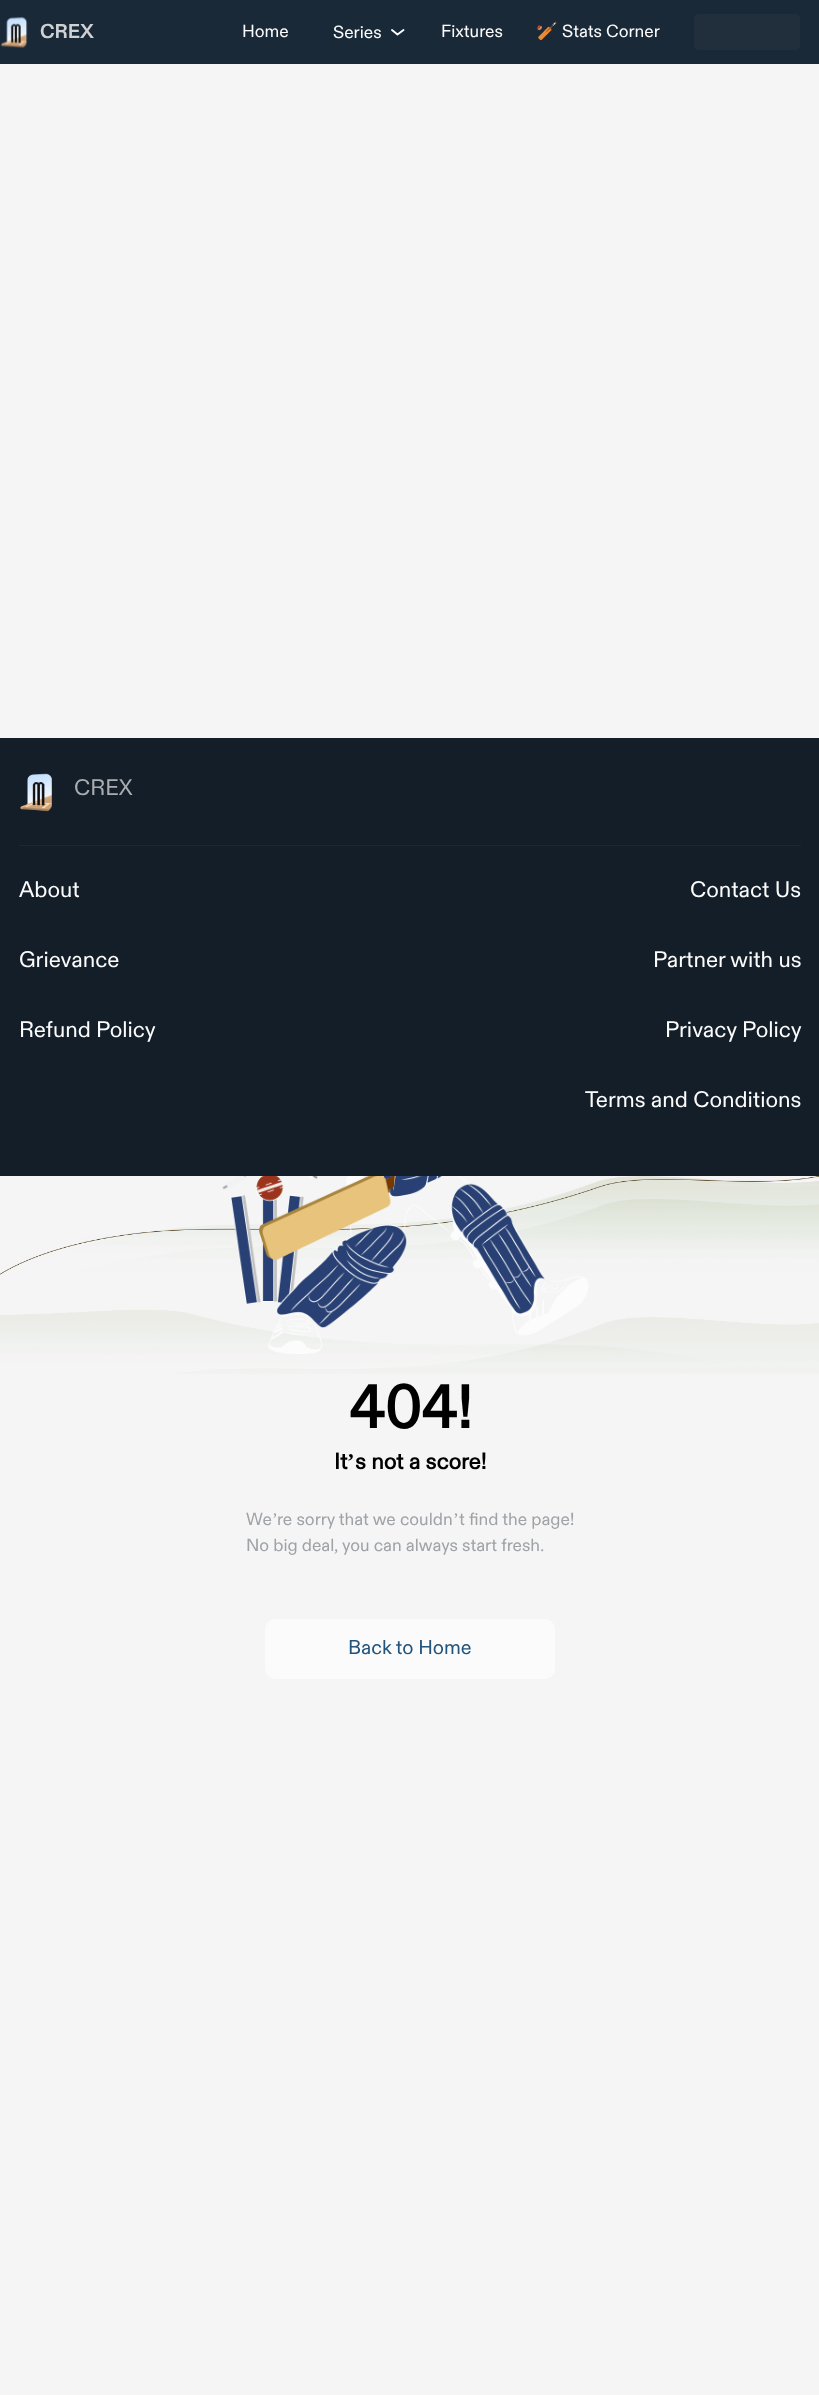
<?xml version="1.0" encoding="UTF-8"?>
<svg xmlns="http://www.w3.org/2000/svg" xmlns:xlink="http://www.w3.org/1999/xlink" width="819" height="2395">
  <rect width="100%" height="100%" fill="#f5f5f5" />
  <rect width="819" height="64" fill="#1a2938" />
  <image x="1" y="17" width="27" height="31" xlink:href="image1.png" />
  <path d="M 392 30 l 5.5 4.5 l 6 -4.5" fill="none" stroke="#ffffff" stroke-width="1.9" stroke-linecap="round" stroke-linejoin="round" />
  <rect x="694" y="14" width="106" height="36" rx="4" fill="#212f3d" />
  <rect y="738" width="819" height="438" fill="#131e29" />
  <rect x="19" y="845" width="782" height="1" fill="#1e2833" />
  <image x="20" y="773" width="32" height="39" xlink:href="image2.png" />
  <image x="0" y="1176" width="819" height="198" xlink:href="image3.png" />
  <image x="222" y="1176" width="367" height="178" xlink:href="image4.png" />
  <rect x="265" y="1619" width="290" height="60" rx="10" fill="#fbfbfb" />
  <text x="40" y="38" style="font-family: 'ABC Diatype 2'; font-size: 20px; font-weight: bold; fill: #cfd1d3">CREX</text>
  <text x="242" y="37" style="font-family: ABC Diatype; font-size: 17.5px; fill: #fcfcfc">Home</text>
  <text x="333" y="38" style="font-family: ABC Diatype; font-size: 17.5px; fill: #fcfcfc">Series</text>
  <text x="441" y="37" style="font-family: ABC Diatype; font-size: 17.5px; fill: #fcfcfc">Fixtures</text>
  <text x="536" y="37" style="font-family: Noto Color Emoji; font-size: 17.5px; fill: #fcfcfc">🏏</text>
  <text x="562" y="37" style="font-family: ABC Diatype; font-size: 17.5px; fill: #fcfcfc">Stats Corner</text>
  <text x="74" y="795" style="font-family: ABC Diatype; font-size: 22.5px; fill: #a9adb1">CREX</text>
  <text x="19" y="897" style="font-family: ABC Diatype; font-size: 22.5px; fill: #fcfcfc">About</text>
  <text x="19" y="967" style="font-family: ABC Diatype; font-size: 22.5px; fill: #fcfcfc">Grievance</text>
  <text x="19" y="1037" style="font-family: ABC Diatype; font-size: 22.5px; fill: #fcfcfc">Refund Policy</text>
  <text x="690" y="897" style="font-family: ABC Diatype; font-size: 22.5px; fill: #fcfcfc">Contact Us</text>
  <text x="653" y="967" style="font-family: ABC Diatype; font-size: 22.5px; fill: #fcfcfc">Partner with us</text>
  <text x="665" y="1037" style="font-family: ABC Diatype; font-size: 22.5px; fill: #fcfcfc">Privacy Policy</text>
  <text x="585" y="1107" style="font-family: ABC Diatype; font-size: 22.5px; fill: #fcfcfc">Terms and Conditions</text>
  <text x="349" y="1428" style="font-family: ABC Diatype; font-size: 60px; font-weight: bold; fill: #000000">404!</text>
  <text x="334" y="1469" style="font-family: ABC Diatype; font-size: 22.5px; font-weight: bold; fill: #000000">It</text>
  <text x="347" y="1469" style="font-family: Liberation Serif; font-size: 22.5px; font-weight: bold; fill: #000000">’</text>
  <text x="355" y="1469" style="font-family: ABC Diatype; font-size: 22.5px; font-weight: bold; fill: #000000">s not a score!</text>
  <text x="246" y="1525" style="font-family: ABC Diatype; font-size: 17.5px; fill: #9fa3a7">We</text>
  <text x="272" y="1525" style="font-family: Liberation Serif; font-size: 17.5px; fill: #9fa3a7">’</text>
  <text x="277" y="1525" style="font-family: ABC Diatype; font-size: 17.5px; fill: #9fa3a7">re sorry that we couldn</text>
  <text x="453" y="1525" style="font-family: Liberation Serif; font-size: 17.5px; fill: #9fa3a7">’</text>
  <text x="459" y="1525" style="font-family: ABC Diatype; font-size: 17.5px; fill: #9fa3a7">t find the page!</text>
  <text x="246" y="1551" style="font-family: ABC Diatype; font-size: 17.5px; fill: #9fa3a7">No big deal</text>
  <text x="334" y="1551" style="font-family: Liberation Serif; font-size: 17.5px; fill: #9fa3a7">,</text>
  <text x="342" y="1551" style="font-family: ABC Diatype; font-size: 17.5px; fill: #9fa3a7">you can always start fresh</text>
  <text x="540" y="1551" style="font-family: Liberation Serif; font-size: 17.5px; fill: #9fa3a7">.</text>
  <text x="348" y="1654" style="font-family: ABC Diatype; font-size: 20px; fill: #22547d">Back to Home</text>
</svg>
